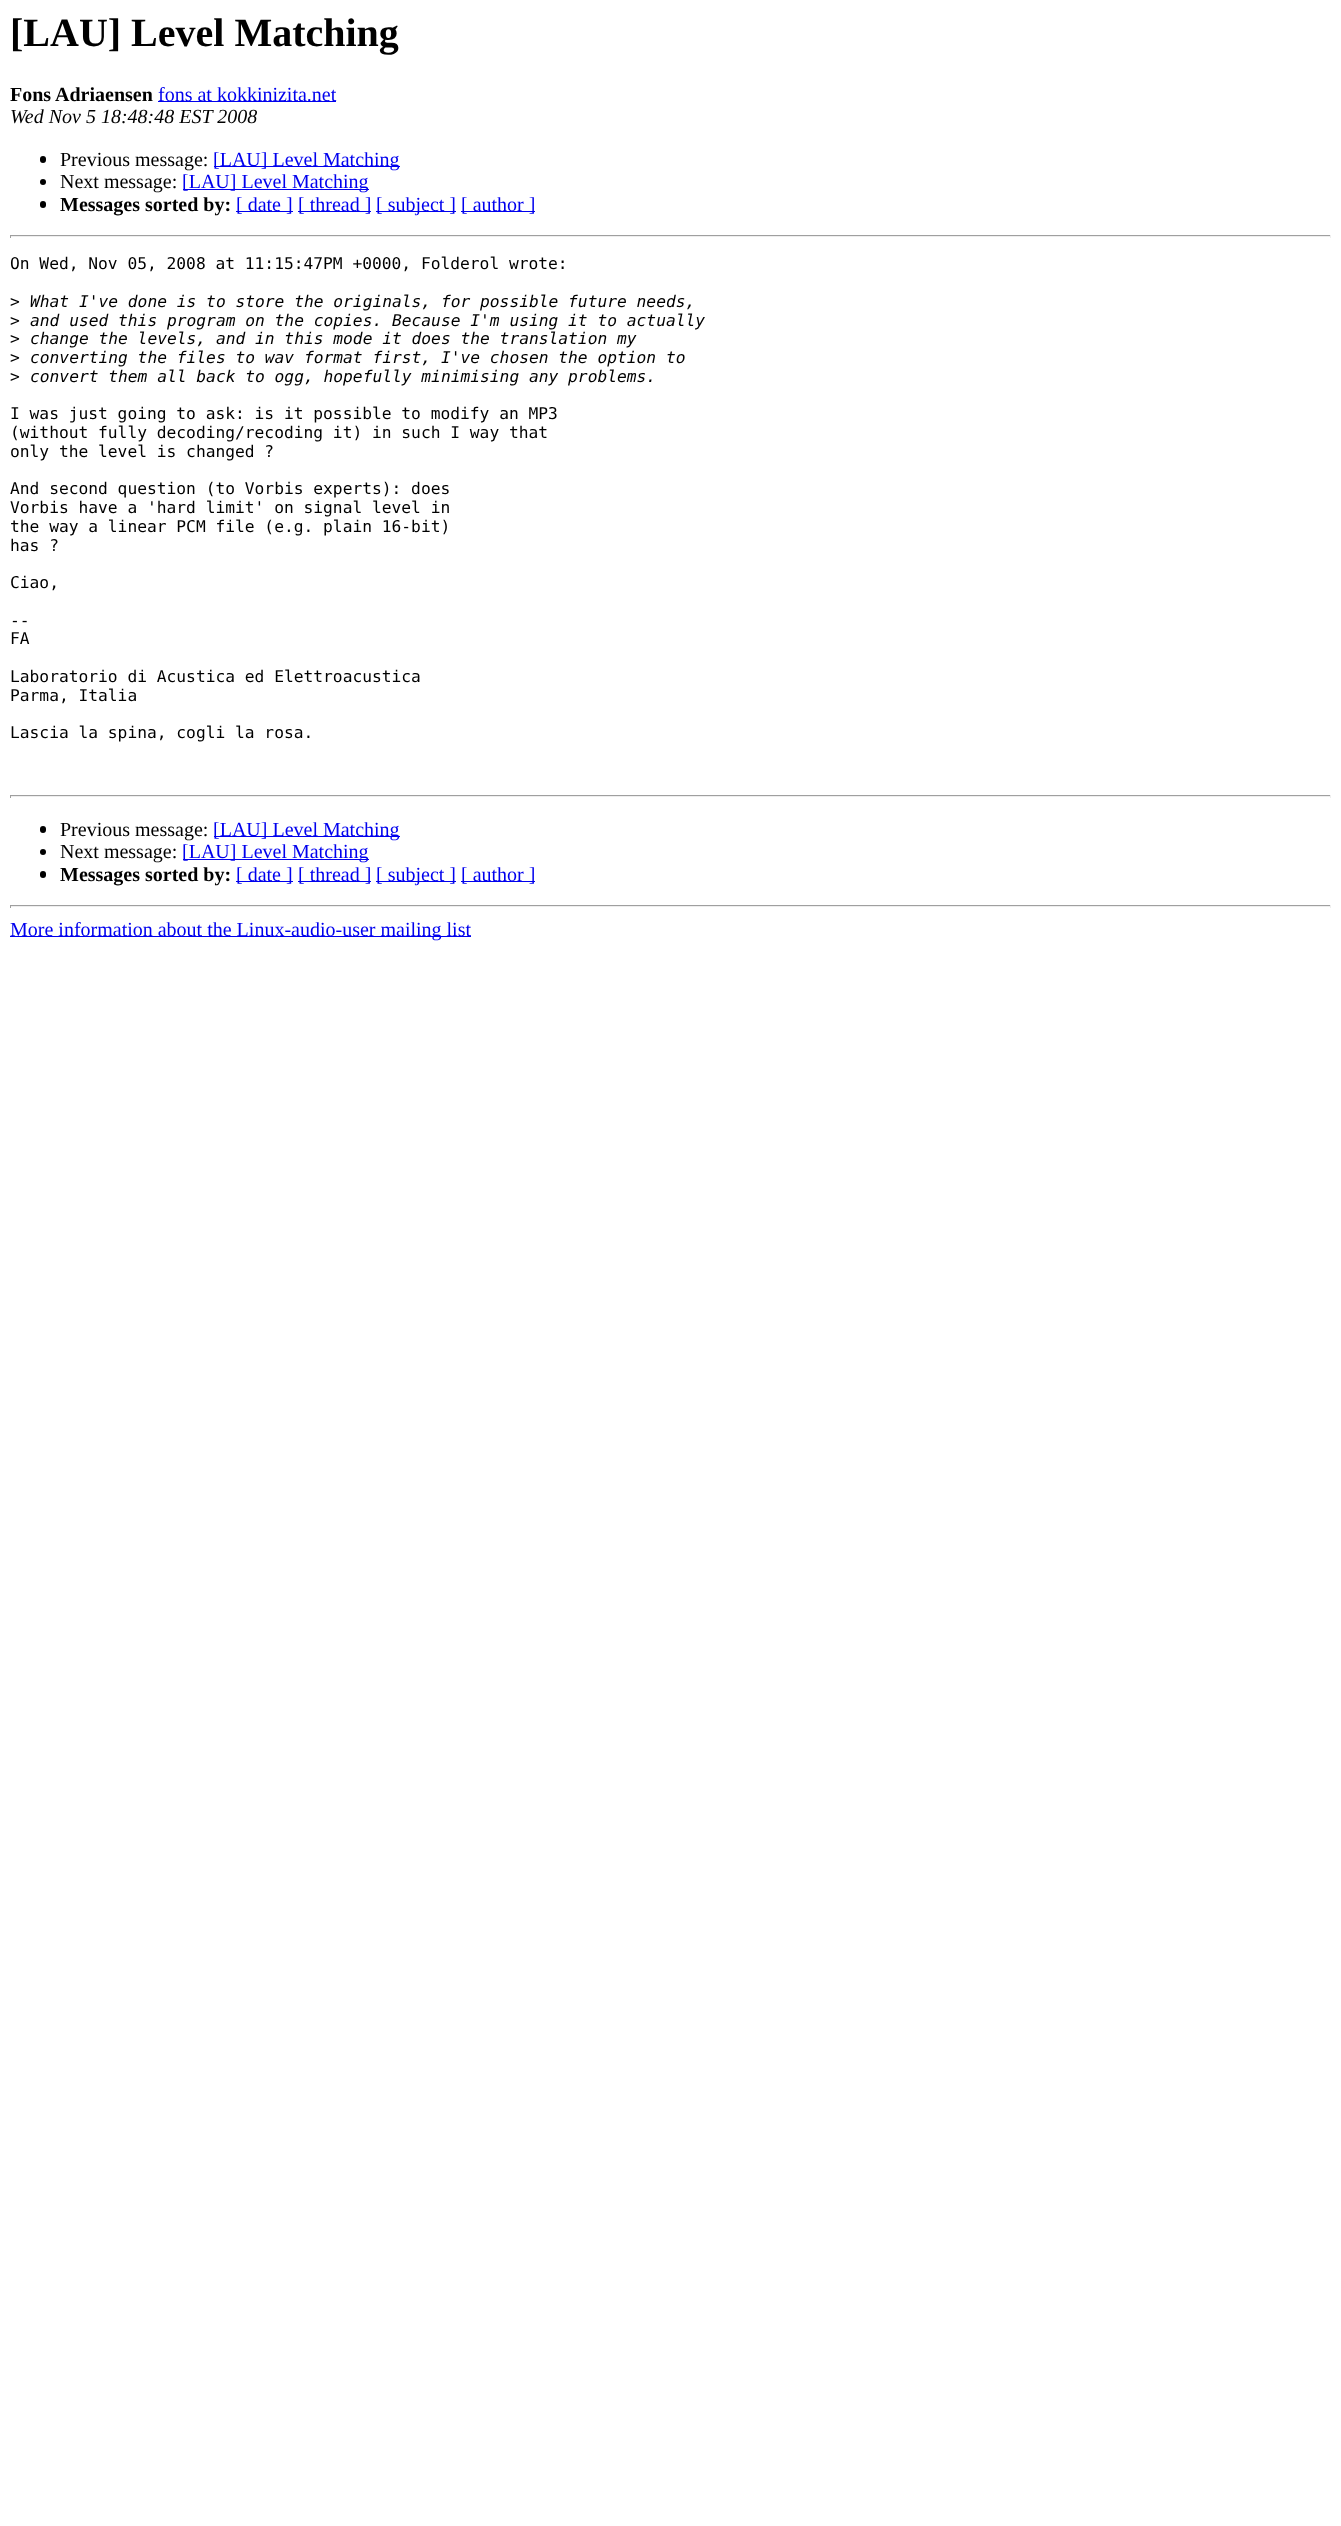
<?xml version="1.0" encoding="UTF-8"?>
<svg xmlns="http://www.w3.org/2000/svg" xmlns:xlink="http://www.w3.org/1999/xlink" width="1341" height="2526">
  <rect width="100%" height="100%" fill="#ffffff" />
  <rect x="158" y="101" width="178" height="1" fill="#0000ee" />
  <rect x="40" y="156" width="6" height="7" rx="3" fill="#000000" />
  <rect x="214" y="166" width="186" height="1" fill="#0000ee" />
  <circle cx="43" cy="182" r="3" fill="#000000" />
  <rect x="183" y="189" width="186" height="1" fill="#0000ee" />
  <rect x="40" y="201" width="6" height="7" rx="3" fill="#000000" />
  <rect x="236" y="211" width="57" height="1" fill="#0000ee" />
  <rect x="298" y="211" width="73" height="1" fill="#0000ee" />
  <rect x="376" y="211" width="80" height="1" fill="#0000ee" />
  <rect x="461" y="211" width="74" height="1" fill="#0000ee" />
  <rect x="10" y="235" width="1321" height="1" fill="#9f9f9f" />
  <rect x="1330" y="235" width="1" height="3" fill="#eeeeee" />
  <rect x="10" y="236" width="1321" height="1" fill="#eeeeee" />
  <rect x="10" y="235" width="1" height="3" fill="#9f9f9f" />
  <rect x="10" y="795" width="1321" height="1" fill="#9f9f9f" />
  <rect x="1330" y="795" width="1" height="3" fill="#eeeeee" />
  <rect x="10" y="796" width="1321" height="1" fill="#eeeeee" />
  <rect x="10" y="795" width="1" height="3" fill="#9f9f9f" />
  <rect x="40" y="826" width="6" height="7" rx="3" fill="#000000" />
  <rect x="214" y="836" width="186" height="1" fill="#0000ee" />
  <circle cx="43" cy="852" r="3" fill="#000000" />
  <rect x="183" y="859" width="186" height="1" fill="#0000ee" />
  <rect x="40" y="871" width="6" height="7" rx="3" fill="#000000" />
  <rect x="236" y="881" width="57" height="1" fill="#0000ee" />
  <rect x="298" y="881" width="73" height="1" fill="#0000ee" />
  <rect x="376" y="881" width="80" height="1" fill="#0000ee" />
  <rect x="461" y="881" width="74" height="1" fill="#0000ee" />
  <rect x="10" y="905" width="1321" height="1" fill="#9f9f9f" />
  <rect x="1330" y="905" width="1" height="3" fill="#eeeeee" />
  <rect x="10" y="906" width="1321" height="1" fill="#eeeeee" />
  <rect x="10" y="905" width="1" height="3" fill="#9f9f9f" />
  <rect x="10" y="936" width="461" height="1" fill="#0000ee" />
  <text x="10" y="46" style="font-family: Liberation Serif; font-size: 40px; font-weight: bold; fill: #000000">[LAU] Level Matching</text>
  <text x="10" y="101" style="font-family: Liberation Serif; font-size: 20px; font-weight: bold; fill: #000000">Fons Adriaensen</text>
  <text x="158" y="101" style="font-family: Liberation Serif; font-size: 20px; fill: #0000ee">fons at kokkinizita.net</text>
  <text x="10" y="123" style="font-family: Liberation Serif; font-size: 20px; font-style: italic; fill: #000000">Wed Nov 5 18:48:48 EST 2008</text>
  <text x="60" y="166" style="font-family: Liberation Serif; font-size: 20px; fill: #000000">Previous message:</text>
  <text x="213" y="166" style="font-family: Liberation Serif; font-size: 20px; fill: #0000ee">[LAU] Level Matching</text>
  <text x="60" y="188" style="font-family: Liberation Serif; font-size: 20px; fill: #000000">Next message:</text>
  <text x="182" y="188" style="font-family: Liberation Serif; font-size: 20px; fill: #0000ee">[LAU] Level Matching</text>
  <text x="60" y="211" style="font-family: Liberation Serif; font-size: 20px; font-weight: bold; fill: #000000">Messages sorted by:</text>
  <text x="236" y="211" style="font-family: Liberation Serif; font-size: 20px; fill: #0000ee">[ date ]</text>
  <text x="298" y="211" style="font-family: Liberation Serif; font-size: 20px; fill: #0000ee">[ thread ]</text>
  <text x="376" y="211" style="font-family: Liberation Serif; font-size: 20px; fill: #0000ee">[ subject ]</text>
  <text x="461" y="211" style="font-family: Liberation Serif; font-size: 20px; fill: #0000ee">[ author ]</text>
  <text x="10" y="269" style="font-family: DejaVu Sans Mono; font-size: 16.25px; fill: #000000">On Wed, Nov 05, 2008 at 11:15:47PM +0000, Folderol wrote:</text>
  <text x="10" y="307" style="font-family: DejaVu Sans Mono; font-size: 16.25px; fill: #000000">&gt;</text>
  <text x="30" y="307" style="font-family: DejaVu Sans Mono; font-size: 16.25px; font-style: italic; fill: #000000">What I've done is to store the originals, for possible future needs,</text>
  <text x="10" y="326" style="font-family: DejaVu Sans Mono; font-size: 16.25px; fill: #000000">&gt;</text>
  <text x="30" y="326" style="font-family: DejaVu Sans Mono; font-size: 16.25px; font-style: italic; fill: #000000">and used this program on the copies. Because I'm using it to actually</text>
  <text x="10" y="344" style="font-family: DejaVu Sans Mono; font-size: 16.25px; fill: #000000">&gt;</text>
  <text x="30" y="344" style="font-family: DejaVu Sans Mono; font-size: 16.25px; font-style: italic; fill: #000000">change the levels, and in this mode it does the translation my</text>
  <text x="10" y="363" style="font-family: DejaVu Sans Mono; font-size: 16.25px; fill: #000000">&gt;</text>
  <text x="30" y="363" style="font-family: DejaVu Sans Mono; font-size: 16.25px; font-style: italic; fill: #000000">converting the files to wav format first, I've chosen the option to</text>
  <text x="10" y="382" style="font-family: DejaVu Sans Mono; font-size: 16.25px; fill: #000000">&gt;</text>
  <text x="30" y="382" style="font-family: DejaVu Sans Mono; font-size: 16.25px; font-style: italic; fill: #000000">convert them all back to ogg, hopefully minimising any problems.</text>
  <text x="10" y="419" style="font-family: DejaVu Sans Mono; font-size: 16.25px; fill: #000000">I was just going to ask: is it possible to modify an MP3</text>
  <text x="10" y="438" style="font-family: DejaVu Sans Mono; font-size: 16.25px; fill: #000000">(without fully decoding/recoding it) in such I way that</text>
  <text x="10" y="457" style="font-family: DejaVu Sans Mono; font-size: 16.25px; fill: #000000">only the level is changed ?</text>
  <text x="10" y="494" style="font-family: DejaVu Sans Mono; font-size: 16.25px; fill: #000000">And second question (to Vorbis experts): does</text>
  <text x="10" y="513" style="font-family: DejaVu Sans Mono; font-size: 16.25px; fill: #000000">Vorbis have a 'hard limit' on signal level in</text>
  <text x="10" y="532" style="font-family: DejaVu Sans Mono; font-size: 16.25px; fill: #000000">the way a linear PCM file (e.g. plain 16-bit)</text>
  <text x="10" y="551" style="font-family: DejaVu Sans Mono; font-size: 16.25px; fill: #000000">has ?</text>
  <text x="10" y="588" style="font-family: DejaVu Sans Mono; font-size: 16.25px; fill: #000000">Ciao,</text>
  <text x="10" y="626" style="font-family: DejaVu Sans Mono; font-size: 16.25px; fill: #000000">--</text>
  <text x="10" y="644" style="font-family: DejaVu Sans Mono; font-size: 16.25px; fill: #000000">FA</text>
  <text x="10" y="682" style="font-family: DejaVu Sans Mono; font-size: 16.25px; fill: #000000">Laboratorio di Acustica ed Elettroacustica</text>
  <text x="10" y="701" style="font-family: DejaVu Sans Mono; font-size: 16.25px; fill: #000000">Parma, Italia</text>
  <text x="10" y="738" style="font-family: DejaVu Sans Mono; font-size: 16.25px; fill: #000000">Lascia la spina, cogli la rosa.</text>
  <text x="60" y="836" style="font-family: Liberation Serif; font-size: 20px; fill: #000000">Previous message:</text>
  <text x="213" y="836" style="font-family: Liberation Serif; font-size: 20px; fill: #0000ee">[LAU] Level Matching</text>
  <text x="60" y="858" style="font-family: Liberation Serif; font-size: 20px; fill: #000000">Next message:</text>
  <text x="182" y="858" style="font-family: Liberation Serif; font-size: 20px; fill: #0000ee">[LAU] Level Matching</text>
  <text x="60" y="881" style="font-family: Liberation Serif; font-size: 20px; font-weight: bold; fill: #000000">Messages sorted by:</text>
  <text x="236" y="881" style="font-family: Liberation Serif; font-size: 20px; fill: #0000ee">[ date ]</text>
  <text x="298" y="881" style="font-family: Liberation Serif; font-size: 20px; fill: #0000ee">[ thread ]</text>
  <text x="376" y="881" style="font-family: Liberation Serif; font-size: 20px; fill: #0000ee">[ subject ]</text>
  <text x="461" y="881" style="font-family: Liberation Serif; font-size: 20px; fill: #0000ee">[ author ]</text>
  <text x="10" y="936" style="font-family: Liberation Serif; font-size: 20px; fill: #0000ee">More information about the Linux-audio-user mailing list</text>
</svg>
